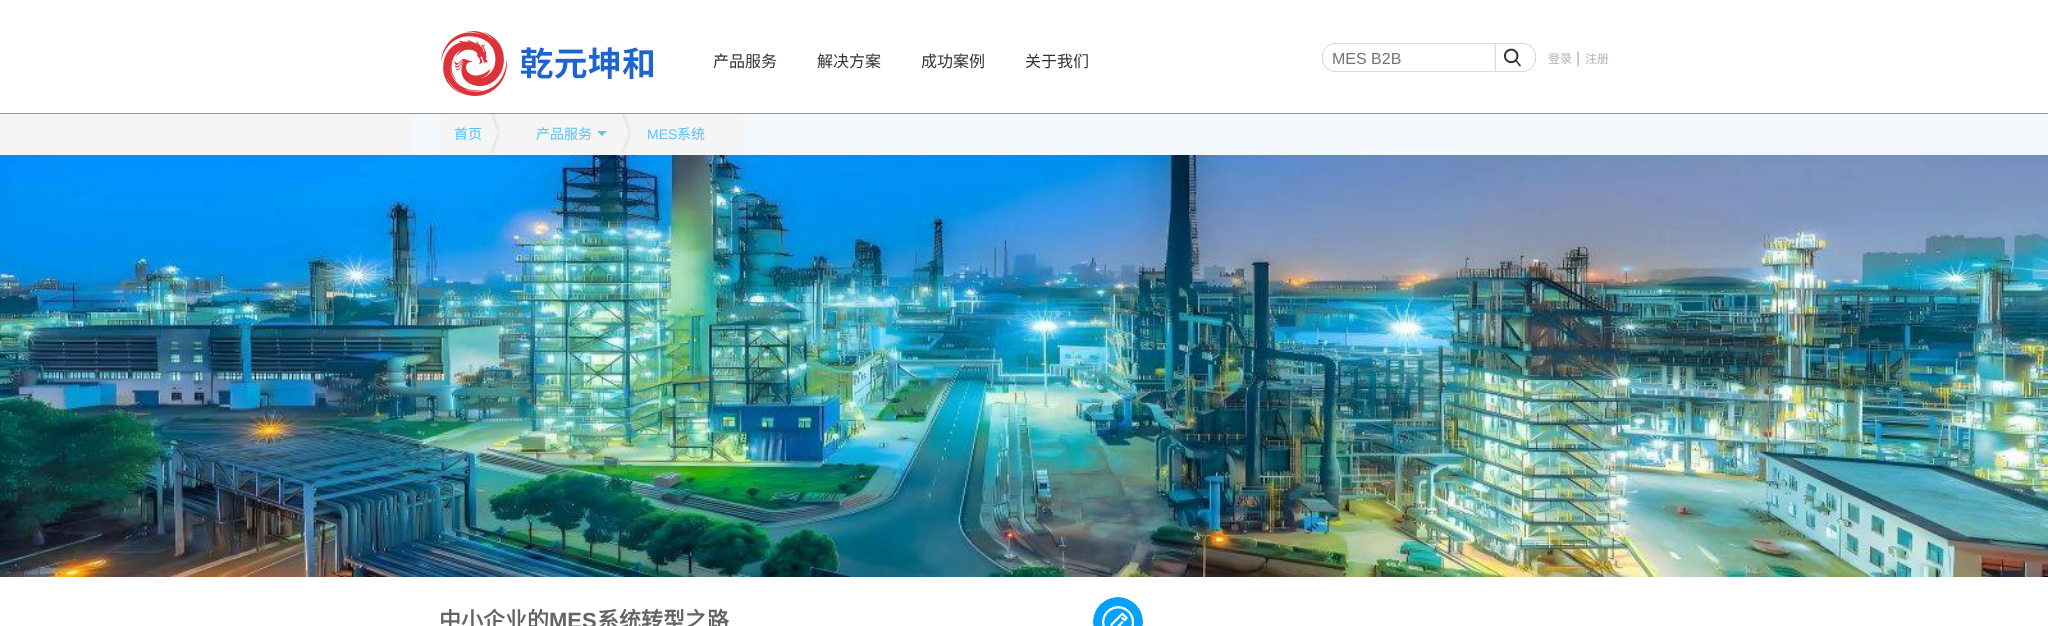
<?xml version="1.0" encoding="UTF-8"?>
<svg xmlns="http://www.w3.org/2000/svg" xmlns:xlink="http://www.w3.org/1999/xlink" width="2048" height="626">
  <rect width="100%" height="100%" fill="#ffffff" />
  <image x="441" y="31" width="212" height="65" xlink:href="image1.png" />
  <image x="1322" y="43" width="214" height="29" xlink:href="image2.png" />
  <image x="1503" y="48" width="18" height="19" xlink:href="image3.png" />
  <rect y="113" width="2048" height="1" fill="#6fa3c7" />
  <rect y="114" width="410" height="41" fill="#f5f3f3" />
  <rect x="410" y="114" width="1638" height="41" fill="#f3f8fd" />
  <rect x="439" y="114" width="306" height="40" fill="#f5f5f5" />
  <image x="490" y="114" width="10" height="39" xlink:href="image4.png" />
  <path d="M 597 131 h 10 l -5 5 z" fill="#59c3fb" />
  <image x="621" y="114" width="10" height="39" xlink:href="image4.png" />
  <image x="0" y="155" width="2048" height="422" xlink:href="image5.png" />
  <image x="1093" y="597" width="50" height="29" xlink:href="image6.png" />
  <text x="713" y="67" style="font-family: Noto Sans CJK SC; font-size: 16px; fill: #323232">产品服务</text>
  <text x="817" y="67" style="font-family: Noto Sans CJK SC; font-size: 16px; fill: #323232">解决方案</text>
  <text x="921" y="67" style="font-family: Noto Sans CJK SC; font-size: 16px; fill: #323232">成功案例</text>
  <text x="1025" y="67" style="font-family: Noto Sans CJK SC; font-size: 16px; fill: #323232">关于我们</text>
  <text x="1332" y="64" style="font-family: Liberation Sans; font-size: 16px; fill: #757575">MES B2B</text>
  <text x="1548" y="63" style="font-family: Noto Sans CJK SC; font-size: 12px; fill: #b4b4b4">登录</text>
  <text x="1576" y="63" style="font-family: Liberation Sans; font-size: 16px; fill: #b4b4b4">|</text>
  <text x="1585" y="63" style="font-family: Noto Sans CJK SC; font-size: 12px; fill: #b4b4b4">注册</text>
  <text x="454" y="139" style="font-family: Noto Sans CJK SC; font-size: 14px; fill: #59c3fb">首页</text>
  <text x="536" y="139" style="font-family: Noto Sans CJK SC; font-size: 14px; fill: #59c3fb">产品服务</text>
  <text x="647" y="139" style="font-family: Liberation Sans; font-size: 14px; fill: #59c3fb">MES</text>
  <text x="677" y="139" style="font-family: Noto Sans CJK SC; font-size: 14px; fill: #59c3fb">系统</text>
  <text x="439" y="628" style="font-family: Noto Sans CJK SC; font-size: 22px; font-weight: bold; fill: #646464">中小企业的</text>
  <text x="549" y="628" style="font-family: Liberation Sans; font-size: 22px; font-weight: bold; fill: #646464">MES</text>
  <text x="597" y="628" style="font-family: Noto Sans CJK SC; font-size: 22px; font-weight: bold; fill: #646464">系统转型之路</text>
</svg>
